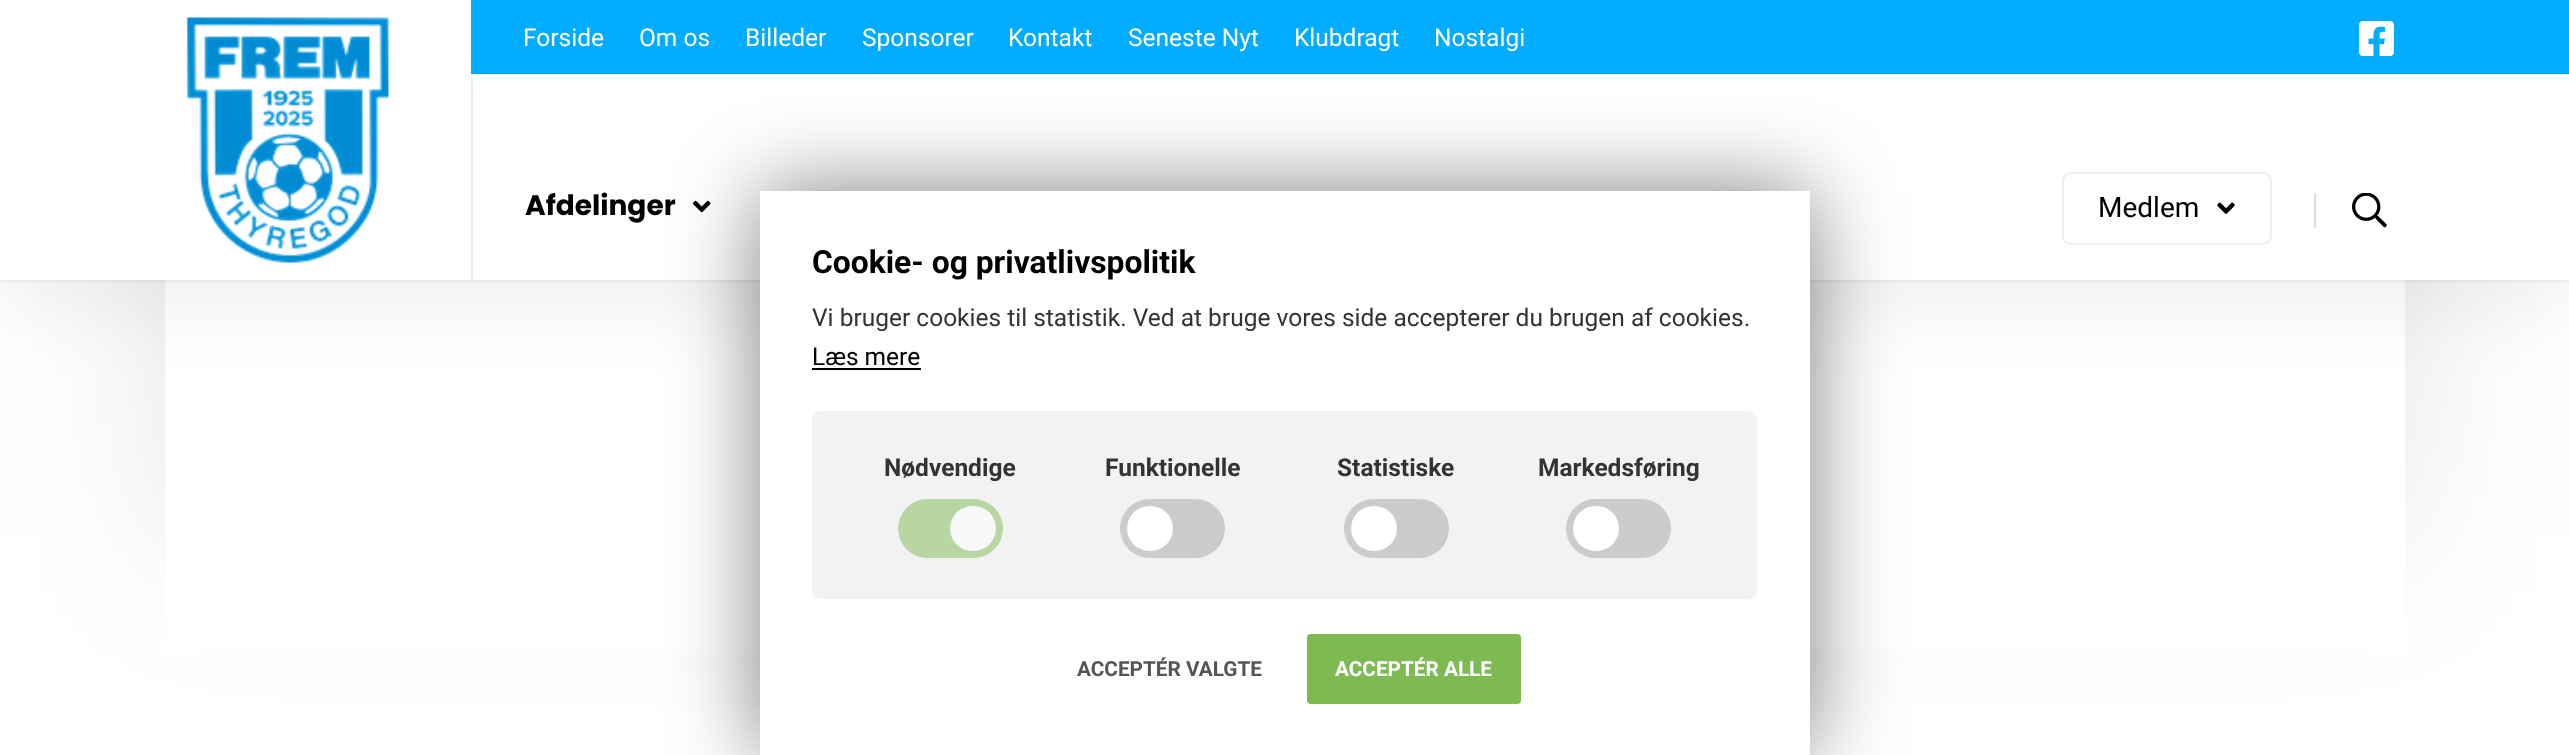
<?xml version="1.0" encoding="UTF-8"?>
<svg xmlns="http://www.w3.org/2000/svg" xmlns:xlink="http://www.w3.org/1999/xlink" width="2569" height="755">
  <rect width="100%" height="100%" fill="#ffffff" />
  <rect x="165" y="-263" width="2240" height="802" fill="#000000" fill-opacity="0.1" filter="blur(87.5px)" />
  <rect x="165" y="280" width="2240" height="371" fill="#ffffff" />
  <rect y="2" width="2569" height="280" fill="#000000" fill-opacity="0.05" filter="blur(1px)" />
  <rect y="35" width="2569" height="280" fill="#000000" fill-opacity="0.05" filter="blur(35px)" />
  <rect width="2569" height="280" fill="#ffffff" />
  <image x="186" y="17" width="203" height="246" xlink:href="image1.png" />
  <rect x="471" y="74" width="2" height="206" fill="#eceef0" />
  <rect x="471" width="2098" height="74" fill="#00acff" />
  <image x="2359" y="21" width="35" height="35" xlink:href="image2.png" />
  <image x="693" y="200" width="18" height="13" xlink:href="image3.png" />
  <rect x="2063" y="173" width="208" height="71" rx="8" fill="none" stroke="#eceef0" stroke-width="2" />
  <image x="2217" y="202" width="18" height="12" xlink:href="image4.png" />
  <rect x="2314" y="193" width="2" height="35" fill="#dddddd" />
  <image x="2352" y="193" width="35" height="35" xlink:href="image5.png" />
  <rect x="760" y="191" width="1050" height="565" fill="#000000" fill-opacity="0.5" filter="blur(44px)" />
  <rect x="760" y="191" width="1050" height="564" fill="#ffffff" />
  <rect x="812" y="368" width="109" height="2" fill="#000000" />
  <rect x="812" y="411" width="945" height="188" rx="9" fill="#f2f2f2" />
  <rect x="898" y="499" width="105" height="59" rx="29.5" fill="#b8d6a2" />
  <rect x="950" y="506" width="46" height="45" rx="22.5" fill="#f9f9f9" />
  <rect x="1120" y="499" width="105" height="59" rx="29.5" fill="#cccccc" />
  <rect x="1127" y="506" width="46" height="45" rx="22.5" fill="#ffffff" />
  <rect x="1344" y="499" width="105" height="59" rx="29.5" fill="#cccccc" />
  <rect x="1351" y="506" width="46" height="45" rx="22.5" fill="#ffffff" />
  <rect x="1566" y="499" width="105" height="59" rx="29.5" fill="#cccccc" />
  <rect x="1573" y="506" width="46" height="45" rx="22.5" fill="#ffffff" />
  <rect x="1307" y="634" width="214" height="70" rx="4" fill="#7dba52" />
  <text x="523" y="46" style="font-family: Roboto; font-size: 24.5px; fill: #ffffff">Forside</text>
  <text x="639" y="46" style="font-family: Roboto; font-size: 24.5px; fill: #ffffff">Om os</text>
  <text x="745" y="46" style="font-family: Roboto; font-size: 24.5px; fill: #ffffff">Billeder</text>
  <text x="862" y="46" style="font-family: Roboto; font-size: 24.5px; fill: #ffffff">Sponsorer</text>
  <text x="1008" y="46" style="font-family: Roboto; font-size: 24.5px; fill: #ffffff">Kontakt</text>
  <text x="1128" y="46" style="font-family: Roboto; font-size: 24.5px; fill: #ffffff">Seneste Nyt</text>
  <text x="1294" y="46" style="font-family: Roboto; font-size: 24.5px; fill: #ffffff">Klubdragt</text>
  <text x="1434" y="46" style="font-family: Roboto; font-size: 24.5px; fill: #ffffff">Nostalgi</text>
  <text x="525" y="215" style="font-family: Poppins; font-size: 28px; font-weight: bold; fill: #000000">Afdelinger</text>
  <text x="2098" y="217" style="font-family: Roboto; font-size: 28px; fill: #000000">Medlem</text>
  <text x="812" y="273" style="font-family: Roboto; font-size: 31.8px; font-weight: bold; fill: #000000">Cookie- og privatlivspolitik</text>
  <text x="812" y="326" style="font-family: Roboto; font-size: 24.5px; fill: #333333">Vi bruger cookies til statistik. Ved at bruge vores side accepterer du brugen af cookies.</text>
  <text x="812" y="365" style="font-family: Roboto; font-size: 24.5px; fill: #000000">Læs mere</text>
  <text x="884" y="476" style="font-family: Roboto; font-size: 24.5px; font-weight: bold; fill: #333333">Nødvendige</text>
  <text x="1105" y="476" style="font-family: Roboto; font-size: 24.5px; font-weight: bold; fill: #333333">Funktionelle</text>
  <text x="1337" y="476" style="font-family: Roboto; font-size: 24.5px; font-weight: bold; fill: #333333">Statistiske</text>
  <text x="1538" y="476" style="font-family: Roboto; font-size: 24.5px; font-weight: bold; fill: #333333">Markedsføring</text>
  <text x="1077" y="676" style="font-family: Roboto; font-size: 20.75px; font-weight: bold; fill: #555555">ACCEPTÉR VALGTE</text>
  <text x="1335" y="676" style="font-family: Roboto; font-size: 20.75px; font-weight: bold; fill: #ffffff">ACCEPTÉR ALLE</text>
</svg>
